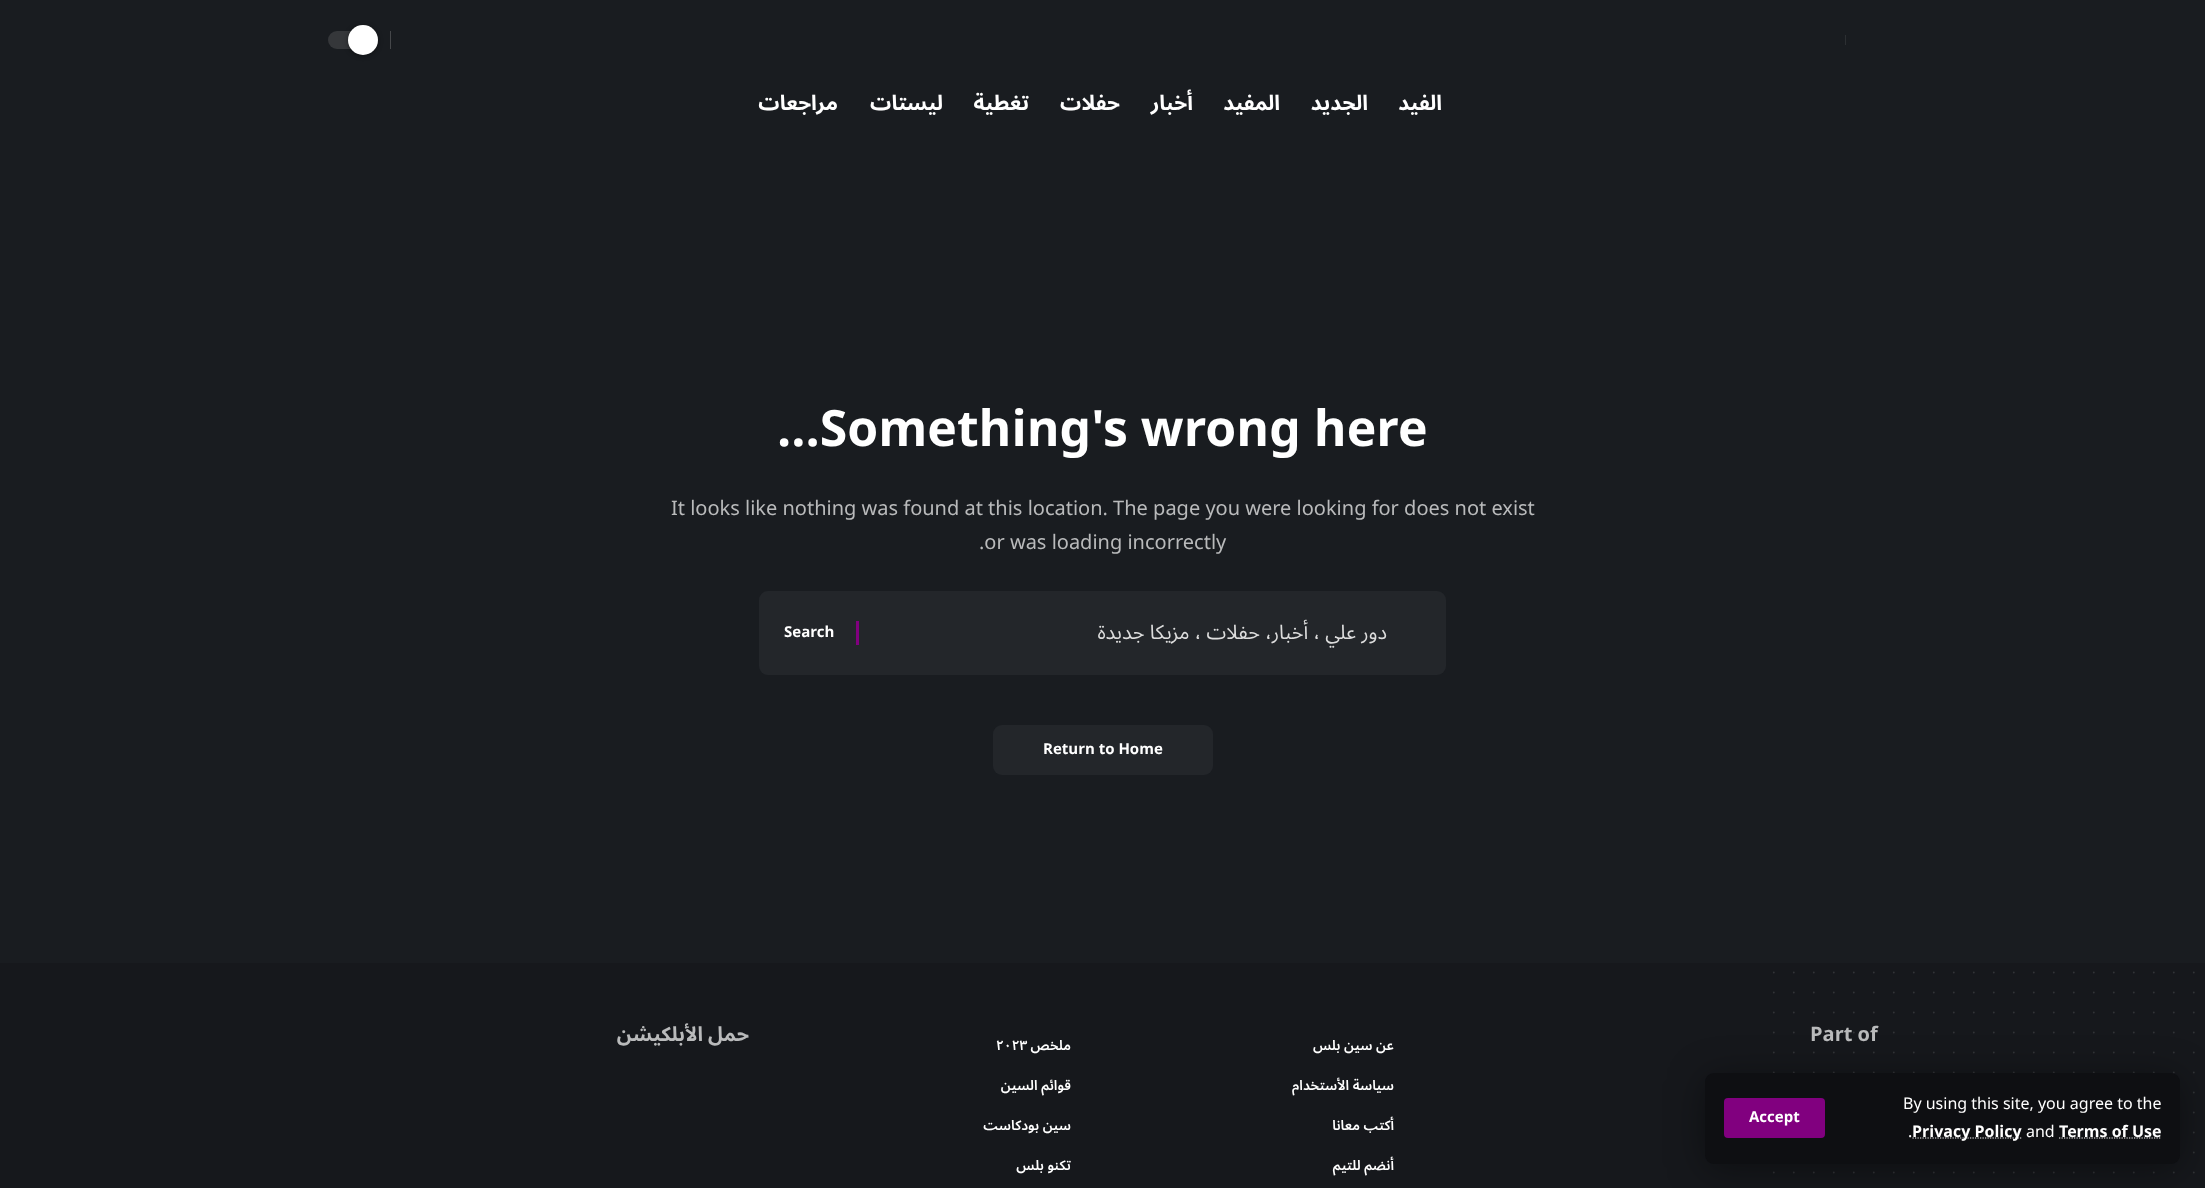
<?xml version="1.0" encoding="UTF-8"?>
<svg xmlns="http://www.w3.org/2000/svg" xmlns:xlink="http://www.w3.org/1999/xlink" width="2205" height="1188">
  <rect width="100%" height="100%" fill="#191c20" />
  <rect x="390" y="31" width="1" height="18" fill="#45474a" />
  <rect x="328" y="31" width="50" height="18" rx="9" fill="#35373a" />
  <rect x="348" y="26" width="30" height="30" rx="15" fill="#000000" fill-opacity="0.4" filter="blur(2.5px)" />
  <circle cx="363" cy="40" r="15" fill="#ffffff" />
  <rect x="1845" y="35" width="1" height="10" fill="#2c2f32" />
  <rect y="963" width="2205" height="225" fill="#16181c" />
  <path d="M 1773.8 1032.5 h 420.2" fill="none" stroke="#323437" stroke-width="1.9" stroke-linecap="round" stroke-dasharray="0 20" />
  <path d="M 1773.8 1052.5 h 420.2" fill="none" stroke="#323437" stroke-width="1.9" stroke-linecap="round" stroke-dasharray="0 20" />
  <path d="M 1773.8 1072.5 h 420.2" fill="none" stroke="#323437" stroke-width="1.9" stroke-linecap="round" stroke-dasharray="0 20" />
  <path d="M 1773.8 1092.5 h 420.2" fill="none" stroke="#323437" stroke-width="1.9" stroke-linecap="round" stroke-dasharray="0 20" />
  <path d="M 1773.8 1112.5 h 420.2" fill="none" stroke="#323437" stroke-width="1.9" stroke-linecap="round" stroke-dasharray="0 20" />
  <path d="M 1773.8 1132.5 h 420.2" fill="none" stroke="#323437" stroke-width="1.9" stroke-linecap="round" stroke-dasharray="0 20" />
  <path d="M 1773.8 1152.5 h 420.2" fill="none" stroke="#323437" stroke-width="1.9" stroke-linecap="round" stroke-dasharray="0 20" />
  <path d="M 1773.8 1172.5 h 420.2" fill="none" stroke="#323437" stroke-width="1.9" stroke-linecap="round" stroke-dasharray="0 20" />
  <rect x="1705" y="1078" width="475" height="91" rx="9" fill="#000000" fill-opacity="0.4" filter="blur(19px)" />
  <rect x="1705" y="1073" width="475" height="91" rx="9" fill="#0e0f12" />
  <rect x="1724" y="1098" width="101" height="40" rx="4" fill="#81007f" />
  <path d="M 1912.5 1138 h 109.5" fill="none" stroke="#ffffff" stroke-width="1.2" stroke-dasharray="1.25 1.25" />
  <path d="M 2059 1138 h 102" fill="none" stroke="#ffffff" stroke-width="1.2" stroke-dasharray="1.25 1.25" />
  <rect x="759" y="591" width="687" height="84" rx="9" fill="#23262a" />
  <rect x="856" y="621" width="3" height="24" fill="#81007f" />
  <rect x="993" y="725" width="220" height="50" rx="9" fill="#23262a" />
  <path d="M 1773.8 972.5 h 420.2" fill="none" stroke="#323437" stroke-width="1.9" stroke-linecap="round" stroke-dasharray="0 20" />
  <path d="M 1773.8 992.5 h 420.2" fill="none" stroke="#323437" stroke-width="1.9" stroke-linecap="round" stroke-dasharray="0 20" />
  <path d="M 1773.8 1012.5 h 420.2" fill="none" stroke="#323437" stroke-width="1.9" stroke-linecap="round" stroke-dasharray="0 20" />
  <text x="838" y="110" style="font-family: Noto Sans Arabic; font-size: 21px; font-weight: bold; letter-spacing: -0.5px; direction: rtl; fill: #ffffff">مراجعات</text>
  <text x="943" y="110" style="font-family: Noto Sans Arabic; font-size: 21px; font-weight: bold; letter-spacing: -0.5px; direction: rtl; fill: #ffffff">ليستات</text>
  <text x="1029" y="110" style="font-family: Noto Sans Arabic; font-size: 21px; font-weight: bold; letter-spacing: -0.5px; direction: rtl; fill: #ffffff">تغطية</text>
  <text x="1120" y="110" style="font-family: Noto Sans Arabic; font-size: 21px; font-weight: bold; letter-spacing: -0.5px; direction: rtl; fill: #ffffff">حفلات</text>
  <text x="1193" y="110" style="font-family: Noto Sans Arabic; font-size: 21px; font-weight: bold; letter-spacing: -0.5px; direction: rtl; fill: #ffffff">أخبار</text>
  <text x="1280" y="110" style="font-family: Noto Sans Arabic; font-size: 21px; font-weight: bold; letter-spacing: -0.5px; direction: rtl; fill: #ffffff">المفيد</text>
  <text x="1368" y="110" style="font-family: Noto Sans Arabic; font-size: 21px; font-weight: bold; letter-spacing: -0.5px; direction: rtl; fill: #ffffff">الجديد</text>
  <text x="1442" y="110" style="font-family: Noto Sans Arabic; font-size: 21px; font-weight: bold; letter-spacing: -0.5px; direction: rtl; fill: #ffffff">الفيد</text>
  <text x="1749" y="1122" style="font-family: Noto Sans Arabic; font-size: 15px; font-weight: bold; fill: #ffffff">Accept</text>
  <text x="1903" y="1109" style="font-family: Noto Sans Arabic; font-size: 16px; fill: #ffffff">By using this site, you agree to the</text>
  <text x="1908" y="1137" style="font-family: Noto Sans Arabic; font-size: 16px; fill: #ffffff">.</text>
  <text x="1912" y="1137" style="font-family: Noto Sans Arabic; font-size: 16px; font-weight: bold; fill: #ffffff">Privacy Policy</text>
  <text x="2026" y="1137" style="font-family: Noto Sans Arabic; font-size: 16px; fill: #ffffff">and</text>
  <text x="2059" y="1137" style="font-family: Noto Sans Arabic; font-size: 16px; font-weight: bold; fill: #ffffff">Terms of Use</text>
  <text x="777" y="446" style="font-family: Noto Sans Arabic; font-size: 50px; font-weight: bold; fill: #ffffff">...Something's wrong here</text>
  <text x="671" y="515" style="font-family: Noto Sans Arabic; font-size: 20px; fill: #b9babb">It looks like nothing was found at this location. The page you were looking for does not exist</text>
  <text x="979" y="549" style="font-family: Noto Sans Arabic; font-size: 20px; fill: #b9babb">.or was loading incorrectly</text>
  <text x="784" y="637" style="font-family: Noto Sans Arabic; font-size: 15px; font-weight: bold; fill: #ffffff">Search</text>
  <text x="1387" y="639" style="font-family: Noto Sans Arabic; font-size: 20px; direction: rtl; fill: #dddddd">دور علي ، أخبار، حفلات ، مزيكا جديدة</text>
  <text x="1043" y="754" style="font-family: Noto Sans Arabic; font-size: 15px; font-weight: bold; fill: #ffffff">Return to Home</text>
  <text x="749" y="1041" style="font-family: Noto Sans Arabic; font-size: 20px; font-weight: bold; direction: rtl; fill: #b9babb">حمل الأبلكيشن</text>
  <text x="1810" y="1041" style="font-family: Noto Sans Arabic; font-size: 20px; font-weight: bold; fill: #b9babb">Part of</text>
  <text x="996" y="1050" style="font-family: Noto Sans Arabic; font-size: 13.75px; font-weight: 600; fill: #ffffff">٢٠٢٣</text>
  <text x="1071" y="1050" style="font-family: Noto Sans Arabic; font-size: 13.75px; font-weight: 600; direction: rtl; fill: #ffffff">ملخص</text>
  <text x="1071" y="1090" style="font-family: Noto Sans Arabic; font-size: 13.75px; font-weight: 600; direction: rtl; fill: #ffffff">قوائم السين</text>
  <text x="1071" y="1130" style="font-family: Noto Sans Arabic; font-size: 13.75px; font-weight: 600; direction: rtl; fill: #ffffff">سين بودكاست</text>
  <text x="1071" y="1170" style="font-family: Noto Sans Arabic; font-size: 13.75px; font-weight: 600; direction: rtl; fill: #ffffff">تكنو بلس</text>
  <text x="1394" y="1050" style="font-family: Noto Sans Arabic; font-size: 13.75px; font-weight: 600; direction: rtl; fill: #ffffff">عن سين بلس</text>
  <text x="1394" y="1090" style="font-family: Noto Sans Arabic; font-size: 13.75px; font-weight: 600; direction: rtl; fill: #ffffff">سياسة الأستخدام</text>
  <text x="1394" y="1130" style="font-family: Noto Sans Arabic; font-size: 13.75px; font-weight: 600; direction: rtl; fill: #ffffff">أكتب معانا</text>
  <text x="1394" y="1170" style="font-family: Noto Sans Arabic; font-size: 13.75px; font-weight: 600; direction: rtl; fill: #ffffff">أنضم للتيم</text>
</svg>
